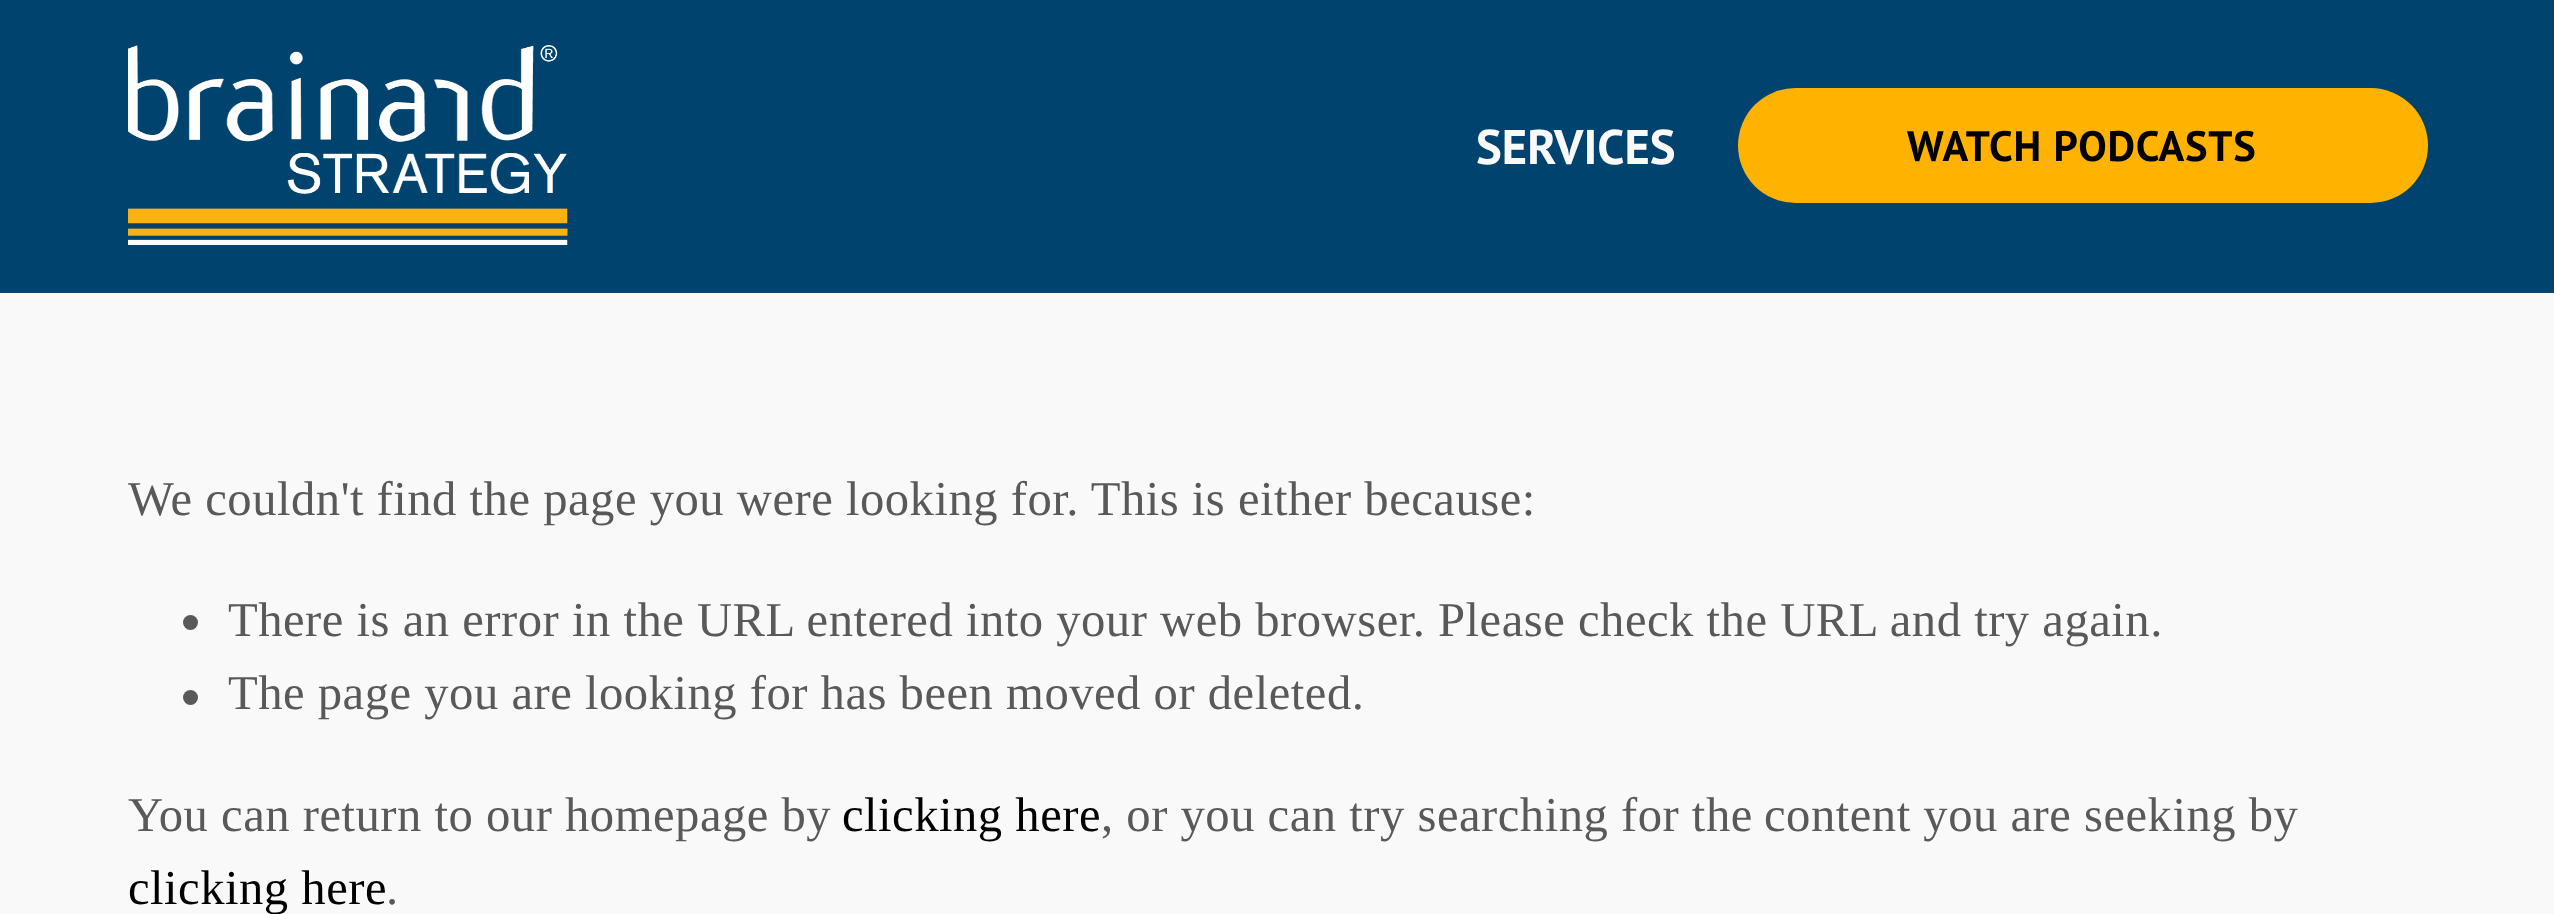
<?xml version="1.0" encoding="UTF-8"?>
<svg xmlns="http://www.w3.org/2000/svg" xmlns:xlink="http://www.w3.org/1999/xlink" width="2554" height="914">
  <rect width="100%" height="100%" fill="#f9f9f9" />
  <rect width="2554" height="293" fill="#00436e" />
  <image x="128" y="45" width="440" height="200" xlink:href="image1.png" />
  <rect x="1738" y="88" width="690" height="115" rx="57.5" fill="#ffb300" />
  <circle cx="190.5" cy="622.5" r="7.5" fill="#58595b" />
  <circle cx="190.5" cy="697.5" r="7.5" fill="#58595b" />
  <text x="1476" y="164" style="font-family: PT Sans; font-size: 48.65px; font-weight: bold; fill: #f9f9f9">SERVICES</text>
  <text x="1907" y="161" style="font-family: PT Sans; font-size: 42.5px; font-weight: bold; letter-spacing: 0.8px; fill: #000000">WATCH PODCASTS</text>
  <text x="128" y="515" style="font-family: Liberation Serif; font-size: 48.65px; letter-spacing: 0.5px; fill: #58595b">We couldn't find the page you were looking for. This is either because:</text>
  <text x="228" y="636" style="font-family: Liberation Serif; font-size: 48.65px; letter-spacing: 0.5px; fill: #58595b">There is an error in the URL entered into your web browser. Please check the URL and try again.</text>
  <text x="228" y="709" style="font-family: Liberation Serif; font-size: 48.65px; letter-spacing: 0.5px; fill: #58595b">The page you are looking for has been moved or deleted.</text>
  <text x="128" y="831" style="font-family: Liberation Serif; font-size: 48.65px; letter-spacing: 0.5px; fill: #58595b">You can return to our homepage by</text>
  <text x="842" y="831" style="font-family: Liberation Serif; font-size: 48.65px; letter-spacing: 0.5px; fill: #000000">clicking here</text>
  <text x="1101" y="831" style="font-family: Liberation Serif; font-size: 48.65px; letter-spacing: 0.5px; fill: #58595b">, or you can try searching for the</text>
  <text x="1764" y="831" style="font-family: Liberation Serif; font-size: 48.65px; letter-spacing: 0.5px; fill: #58595b">content you are seeking by</text>
  <text x="128" y="904" style="font-family: Liberation Serif; font-size: 48.65px; letter-spacing: 0.5px; fill: #000000">clicking here</text>
  <text x="386" y="904" style="font-family: Liberation Serif; font-size: 48.65px; letter-spacing: 0.5px; fill: #58595b">.</text>
</svg>
